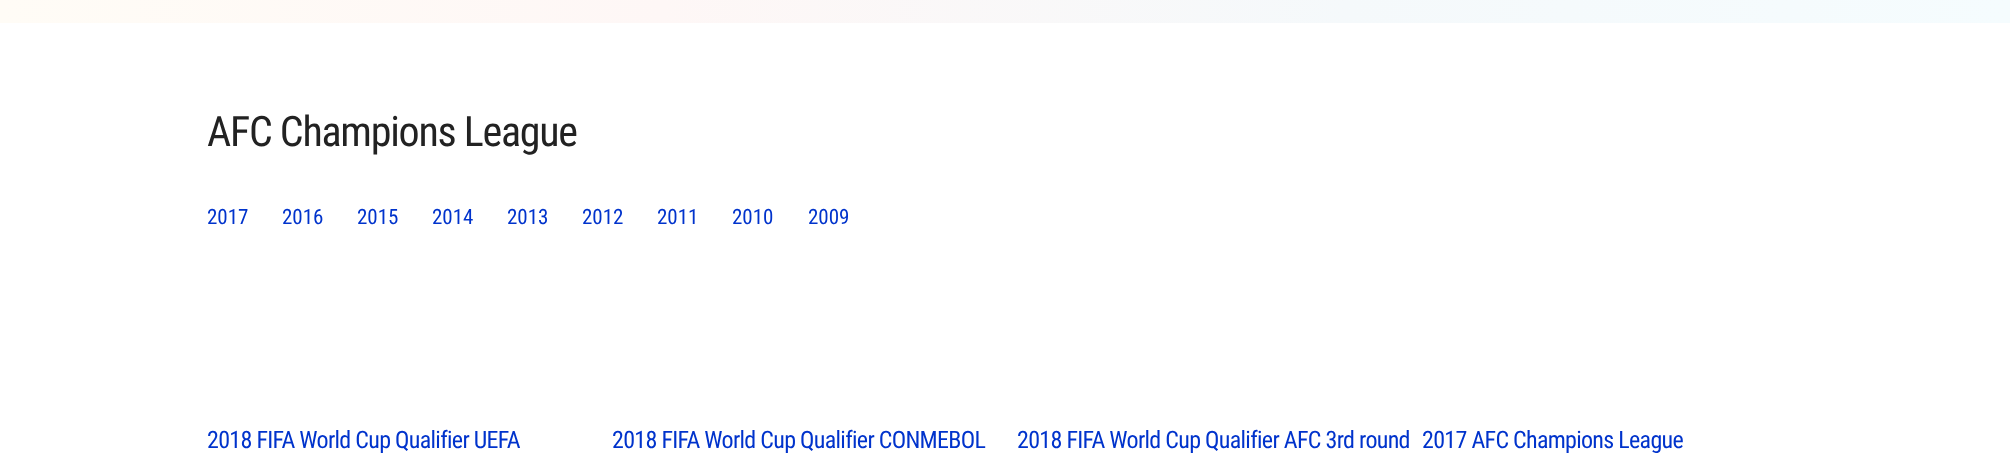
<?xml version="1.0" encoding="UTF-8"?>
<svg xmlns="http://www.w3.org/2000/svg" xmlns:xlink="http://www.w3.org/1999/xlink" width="2010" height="462">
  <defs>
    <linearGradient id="g1" gradientUnits="userSpaceOnUse" x1="0" y1="-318" x2="2010" y2="-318"><stop offset="0" stop-color="#fffcf6" /><stop offset="0.33" stop-color="#fef7f6" /><stop offset="0.67" stop-color="#f5f9fb" /><stop offset="1" stop-color="#f5fcfe" /></linearGradient>
  </defs>
  <rect width="100%" height="100%" fill="#ffffff" />
  <rect width="2010" height="23" fill="url(#g1)" />
  <text x="207" y="146" style="font-family: Roboto Condensed; font-size: 42px; letter-spacing: -1.25px; fill: #222222">AFC Champions League</text>
  <text x="207" y="224" style="font-family: Roboto Condensed; font-size: 21px; fill: #0033cc">2017</text>
  <text x="282" y="224" style="font-family: Roboto Condensed; font-size: 21px; fill: #0033cc">2016</text>
  <text x="357" y="224" style="font-family: Roboto Condensed; font-size: 21px; fill: #0033cc">2015</text>
  <text x="432" y="224" style="font-family: Roboto Condensed; font-size: 21px; fill: #0033cc">2014</text>
  <text x="507" y="224" style="font-family: Roboto Condensed; font-size: 21px; fill: #0033cc">2013</text>
  <text x="582" y="224" style="font-family: Roboto Condensed; font-size: 21px; fill: #0033cc">2012</text>
  <text x="657" y="224" style="font-family: Roboto Condensed; font-size: 21px; fill: #0033cc">2011</text>
  <text x="732" y="224" style="font-family: Roboto Condensed; font-size: 21px; fill: #0033cc">2010</text>
  <text x="808" y="224" style="font-family: Roboto Condensed; font-size: 21px; fill: #0033cc">2009</text>
  <text x="207" y="448" style="font-family: Roboto Condensed; font-size: 24px; letter-spacing: -0.7px; fill: #0033cc">2018 FIFA World Cup Qualifier UEFA</text>
  <text x="612" y="448" style="font-family: Roboto Condensed; font-size: 24px; letter-spacing: -0.7px; fill: #0033cc">2018 FIFA World Cup Qualifier CONMEBOL</text>
  <text x="1017" y="448" style="font-family: Roboto Condensed; font-size: 24px; letter-spacing: -0.7px; fill: #0033cc">2018 FIFA World Cup Qualifier AFC 3rd round</text>
  <text x="1422" y="448" style="font-family: Roboto Condensed; font-size: 24px; letter-spacing: -0.7px; fill: #0033cc">2017 AFC Champions League</text>
</svg>
